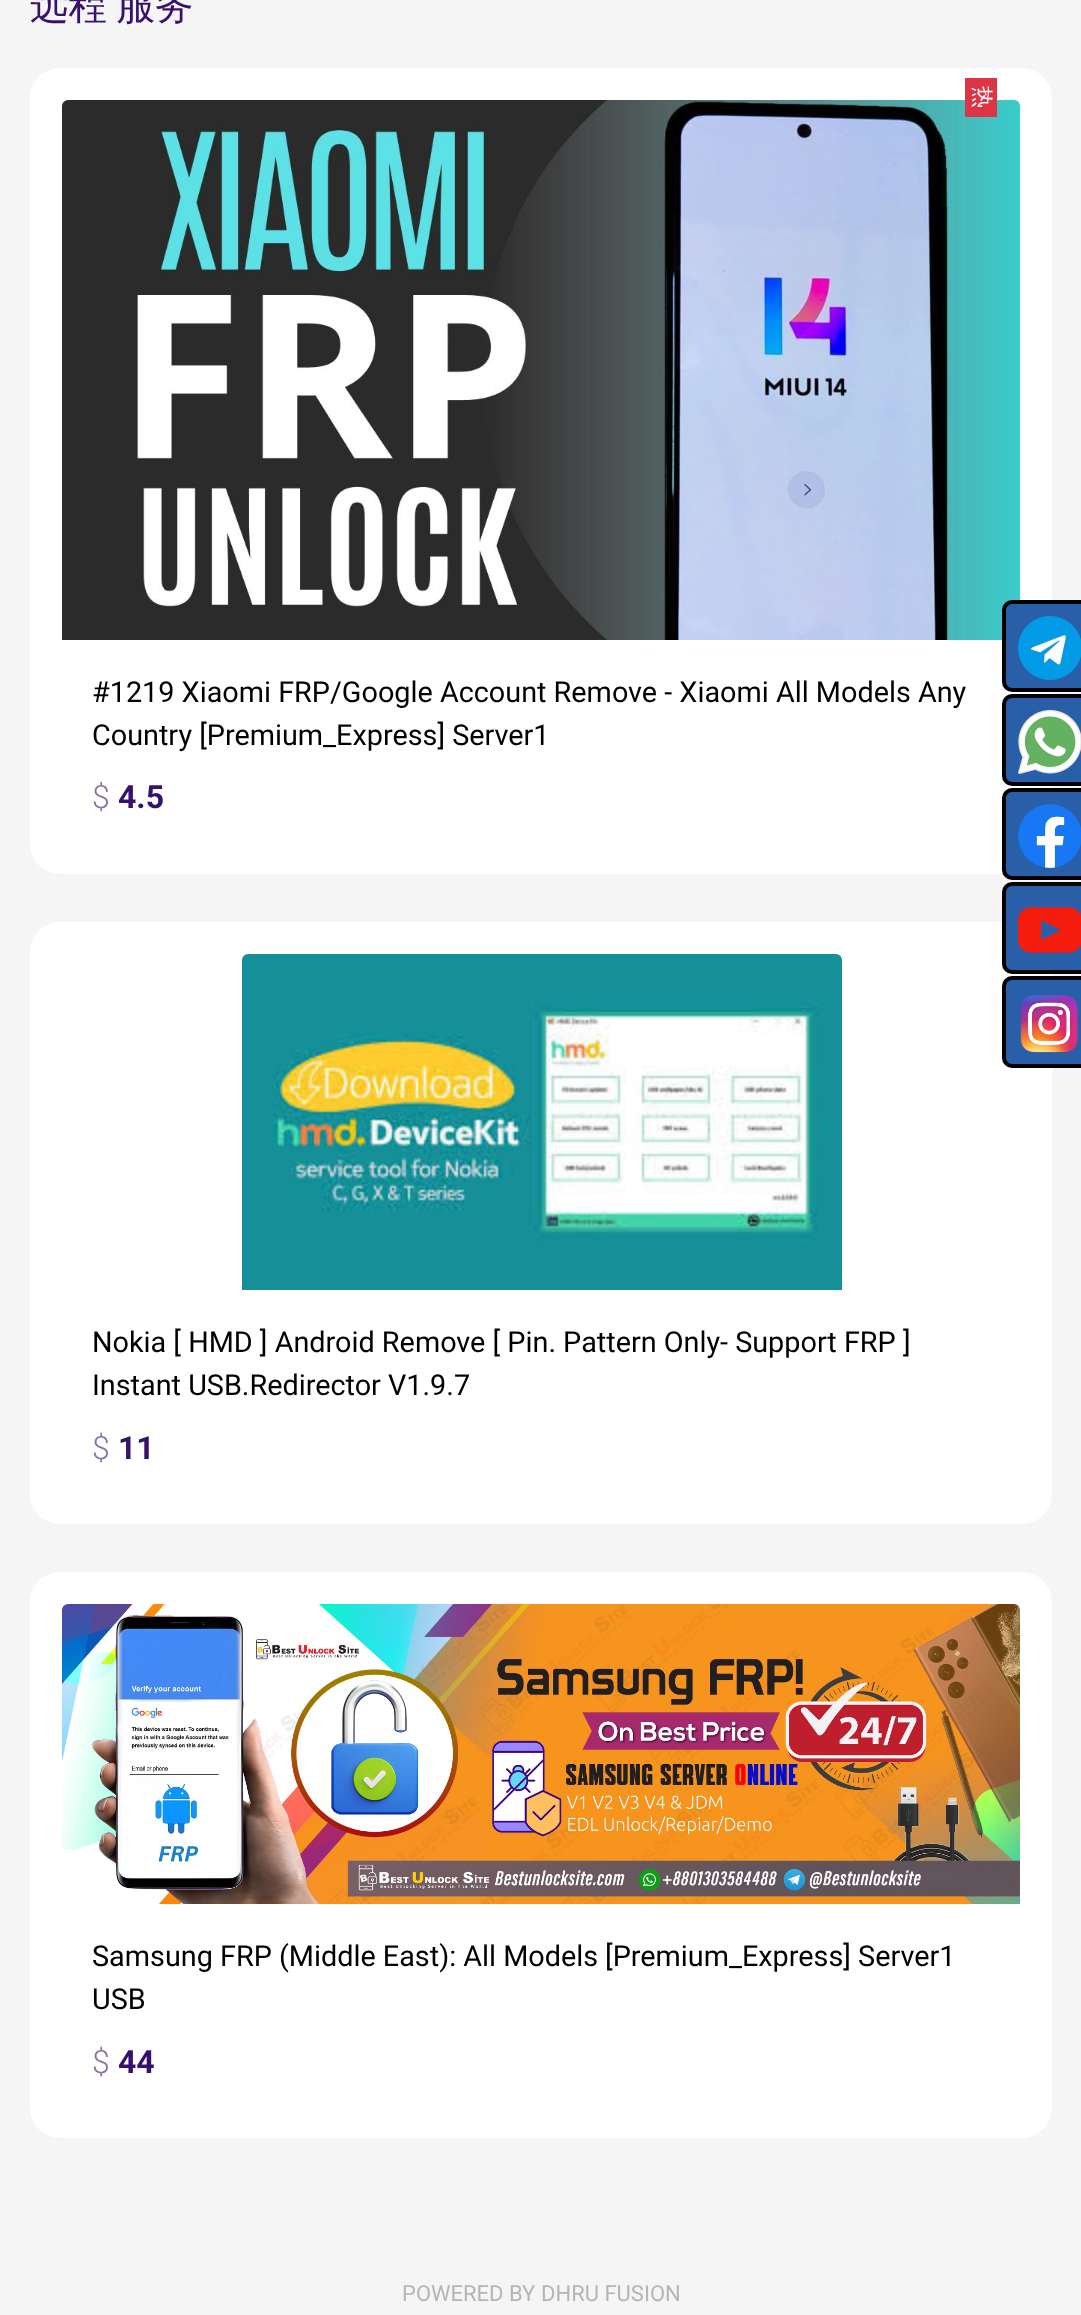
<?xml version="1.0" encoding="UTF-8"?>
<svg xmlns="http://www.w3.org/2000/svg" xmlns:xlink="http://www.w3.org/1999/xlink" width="1081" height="2315">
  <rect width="100%" height="100%" fill="#f5f5f5" />
  <rect x="30" y="68" width="1022" height="806" rx="30" fill="#ffffff" />
  <image x="62" y="100" width="958" height="540" xlink:href="image1.png" />
  <rect x="965" y="78" width="32" height="39" fill="#dc3545" />
  <rect x="30" y="922" width="1022" height="602" rx="30" fill="#ffffff" />
  <image x="242" y="954" width="600" height="336" xlink:href="image2.png" />
  <rect x="30" y="1572" width="1022" height="566" rx="30" fill="#ffffff" />
  <image x="62" y="1604" width="958" height="300" xlink:href="image3.png" />
  <rect x="1004" y="602" width="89" height="88" rx="8" fill="#295fa9" stroke="#000000" stroke-width="4" />
  <image x="1018" y="616" width="63" height="64" xlink:href="image4.png" />
  <rect x="1004" y="696" width="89" height="88" rx="8" fill="#295fa9" stroke="#000000" stroke-width="4" />
  <image x="1018" y="710" width="63" height="64" xlink:href="image5.png" />
  <rect x="1004" y="790" width="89" height="88" rx="8" fill="#295fa9" stroke="#000000" stroke-width="4" />
  <image x="1018" y="804" width="63" height="64" xlink:href="image6.png" />
  <rect x="1004" y="884" width="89" height="88" rx="8" fill="#295fa9" stroke="#000000" stroke-width="4" />
  <image x="1018" y="907" width="63" height="46" xlink:href="image7.png" />
  <rect x="1004" y="978" width="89" height="88" rx="8" fill="#295fa9" stroke="#000000" stroke-width="4" />
  <image x="1020" y="995" width="58" height="58" xlink:href="image8.png" />
  <text x="30" y="19" word-spacing="-2" style="font-family: WenQuanYi Zen Hei; font-size: 38.5px; font-weight: 500; fill: #37126c">远程 服务</text>
  <text x="975" y="86" transform="rotate(90 975 86)" style="font-family: WenQuanYi Zen Hei; font-size: 22px; font-weight: 500; fill: #ffffff">热</text>
  <text x="92" y="702" style="font-family: Roboto; font-size: 28.8px; fill: #000000">#1219 Xiaomi FRP/Google Account Remove - Xiaomi All Models Any</text>
  <text x="92" y="745" style="font-family: Roboto; font-size: 28.8px; fill: #000000">Country [Premium_Express] Server1</text>
  <text x="92" y="808" style="font-family: Roboto; font-size: 32px; font-weight: 300; fill: #8771a7">$</text>
  <text x="118" y="808" style="font-family: Roboto; font-size: 32px; font-weight: bold; fill: #37126c">4.5</text>
  <text x="92" y="1352" style="font-family: Roboto; font-size: 28.8px; fill: #000000">Nokia [ HMD ] Android Remove [ Pin. Pattern Only- Support FRP ]</text>
  <text x="92" y="1395" style="font-family: Roboto; font-size: 28.8px; fill: #000000">Instant USB.Redirector V1.9.7</text>
  <text x="92" y="1459" style="font-family: Roboto; font-size: 32px; font-weight: 300; fill: #8771a7">$</text>
  <text x="118" y="1459" style="font-family: Roboto; font-size: 32px; font-weight: bold; fill: #37126c">11</text>
  <text x="92" y="1966" style="font-family: Roboto; font-size: 28.8px; fill: #000000">Samsung FRP (Middle East): All Models</text>
  <text x="605" y="1966" style="font-family: Roboto; font-size: 28.8px; fill: #000000">[Premium_Express] Server1</text>
  <text x="92" y="2009" style="font-family: Roboto; font-size: 28.8px; fill: #000000">USB</text>
  <text x="92" y="2073" style="font-family: Roboto; font-size: 32px; font-weight: 300; fill: #8771a7">$</text>
  <text x="118" y="2073" style="font-family: Roboto; font-size: 32px; font-weight: bold; fill: #37126c">44</text>
  <text x="402" y="2301" style="font-family: Roboto; font-size: 22px; fill: #b5b5b5">POWERED BY</text>
  <text x="541" y="2301" style="font-family: Roboto; font-size: 22px; fill: #b5b5b5">DHRU FUSION</text>
</svg>
